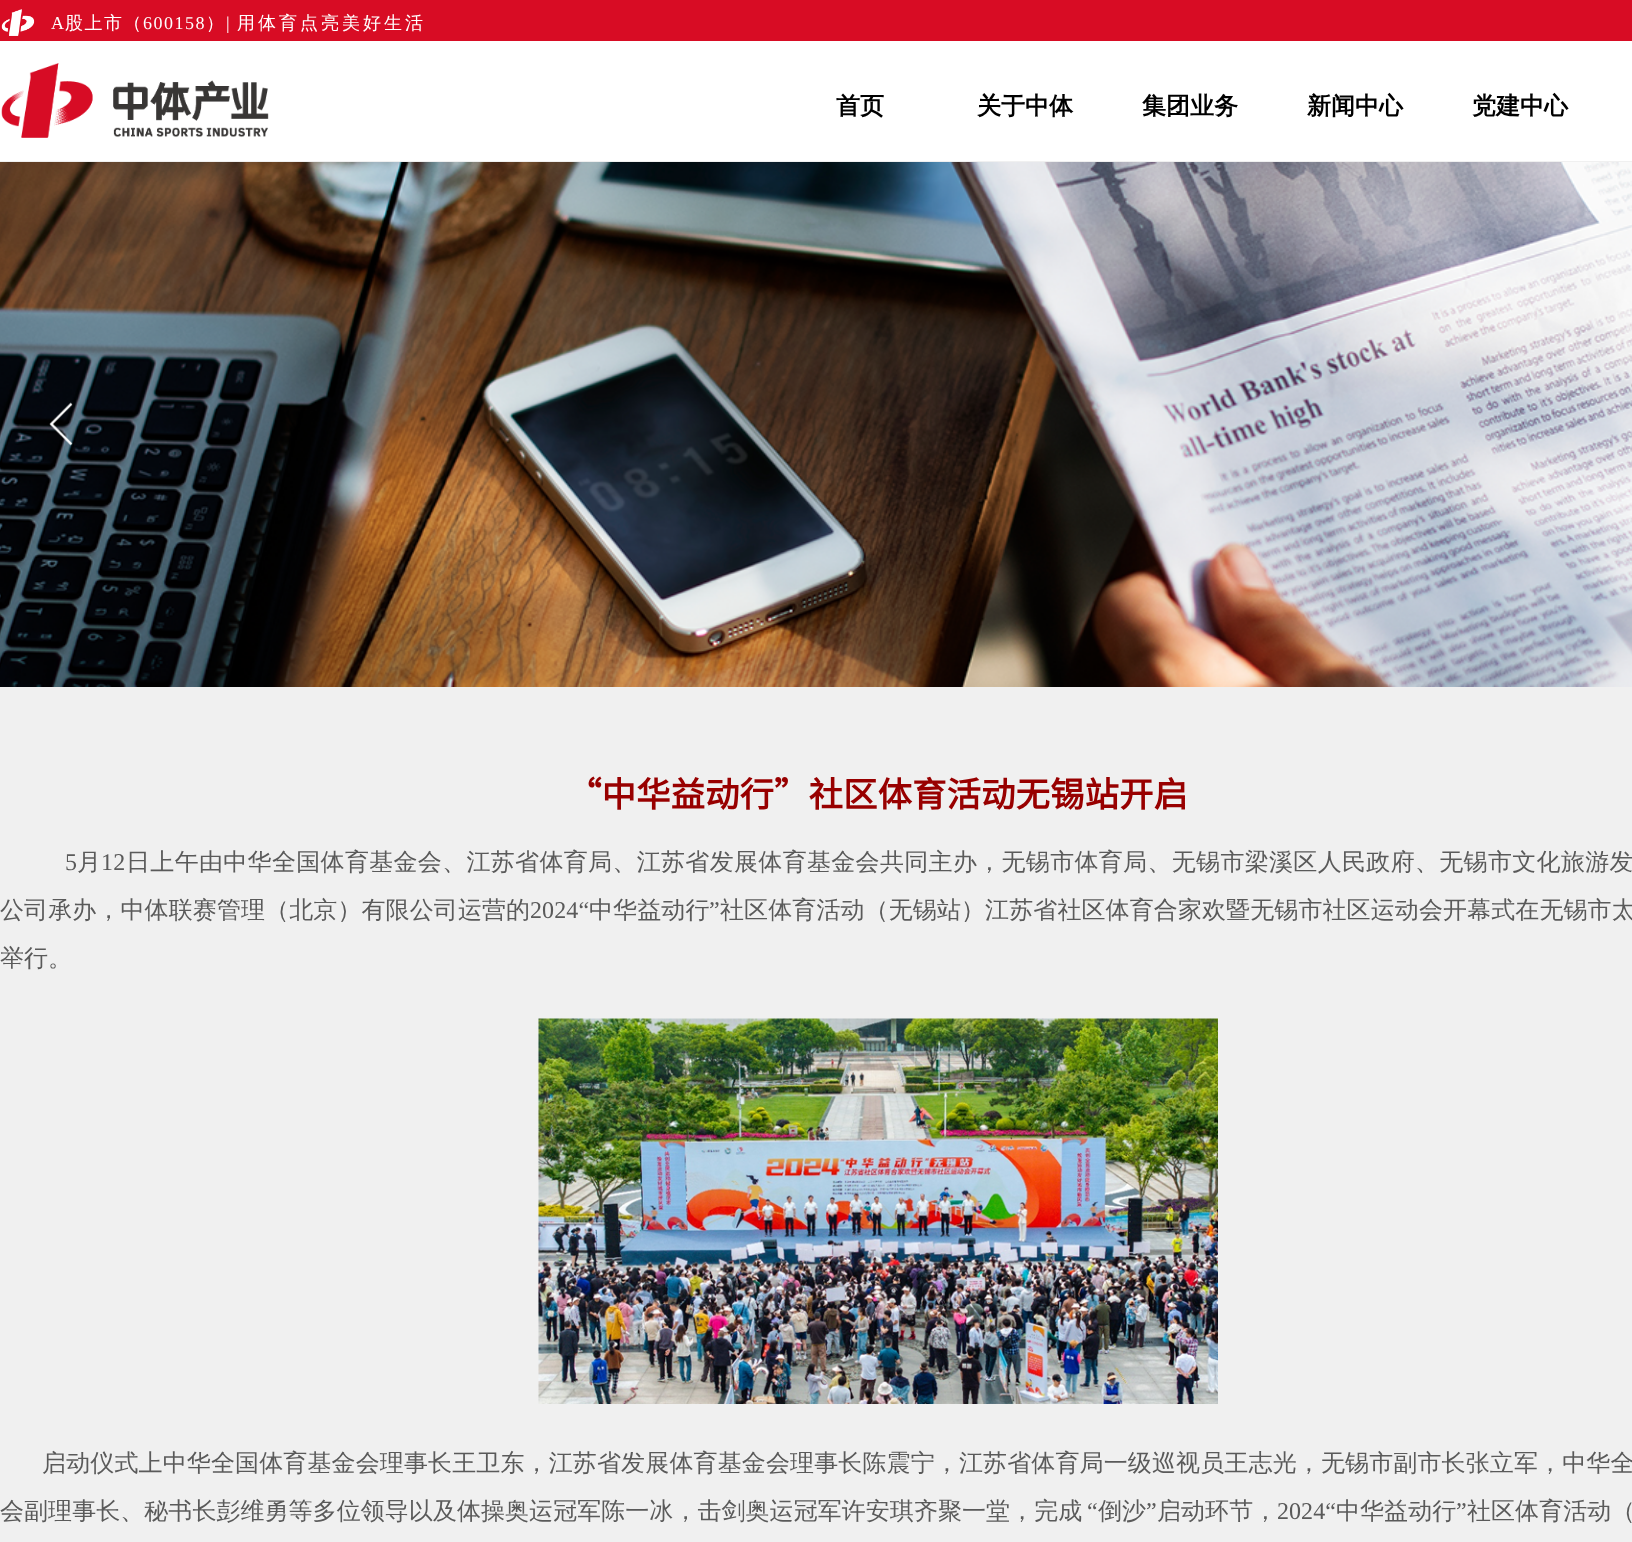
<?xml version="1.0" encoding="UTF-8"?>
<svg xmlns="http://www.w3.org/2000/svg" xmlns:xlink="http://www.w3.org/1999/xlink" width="1632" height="1542">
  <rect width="100%" height="100%" fill="#f0f0f0" />
  <rect width="1632" height="41" fill="#d80c24" />
  <image x="1" y="9" width="34" height="27" xlink:href="image1.png" />
  <rect y="41" width="1632" height="120" fill="#ffffff" />
  <image x="1" y="63" width="268" height="75" xlink:href="image2.png" />
  <image x="0" y="162" width="1632" height="525" xlink:href="image3.png" />
  <image x="49" y="402" width="24" height="44" xlink:href="image4.png" />
  <image x="538" y="1018" width="680" height="386" xlink:href="image5.png" />
  <text x="51" y="29" style="font-family: Liberation Serif; font-size: 18px; letter-spacing: 1.5px; fill: #ffffff">A</text>
  <text x="65" y="29" style="font-family: WenQuanYi Zen Hei; font-size: 18px; font-weight: 500; letter-spacing: 1.5px; fill: #ffffff">股上市（</text>
  <text x="143" y="29" style="font-family: Liberation Serif; font-size: 18px; letter-spacing: 1.5px; fill: #ffffff">600158</text>
  <text x="206" y="29" style="font-family: WenQuanYi Zen Hei; font-size: 18px; font-weight: 500; letter-spacing: 1.5px; fill: #ffffff">）</text>
  <text x="226" y="29" style="font-family: Liberation Serif; font-size: 18px; fill: #ffffff">|</text>
  <text x="237" y="29" style="font-family: WenQuanYi Zen Hei; font-size: 18px; font-weight: 500; letter-spacing: 3px; fill: #ffffff">用体育点亮美好生活</text>
  <text x="836" y="114" style="font-family: WenQuanYi Zen Hei; font-size: 24px; font-weight: bold; fill: #000000">首页</text>
  <text x="977" y="114" style="font-family: WenQuanYi Zen Hei; font-size: 24px; font-weight: bold; fill: #000000">关于中体</text>
  <text x="1142" y="114" style="font-family: WenQuanYi Zen Hei; font-size: 24px; font-weight: bold; fill: #000000">集团业务</text>
  <text x="1307" y="114" style="font-family: WenQuanYi Zen Hei; font-size: 24px; font-weight: bold; fill: #000000">新闻中心</text>
  <text x="1472" y="114" style="font-family: WenQuanYi Zen Hei; font-size: 24px; font-weight: bold; fill: #000000">党建中心</text>
  <text x="567" y="807" style="font-family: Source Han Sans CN; font-size: 34.5px; font-weight: bold; fill: #980000">“中华益动行”社区体育活动无锡站开启</text>
  <text x="65" y="870" style="font-family: Liberation Serif; font-size: 24px; letter-spacing: 0.32px; fill: #5a5a5a">5</text>
  <text x="77" y="870" style="font-family: WenQuanYi Zen Hei; font-size: 24px; font-weight: 500; letter-spacing: 0.32px; fill: #5a5a5a">月</text>
  <text x="101" y="870" style="font-family: Liberation Serif; font-size: 24px; letter-spacing: 0.32px; fill: #5a5a5a">12</text>
  <text x="126" y="870" style="font-family: WenQuanYi Zen Hei; font-size: 24px; font-weight: 500; letter-spacing: 0.32px; fill: #5a5a5a">日上午由中华全国体育基金会、江苏省体育局、江苏省发展体育基金会共同主办，无锡市体育局、无锡市梁溪区人民政府、无锡市文化旅游发</text>
  <text x="0" y="918" style="font-family: WenQuanYi Zen Hei; font-size: 24px; font-weight: 500; letter-spacing: 0.1px; fill: #5a5a5a">公司承办，中体联赛管理（北京）有限公司运营的</text>
  <text x="530" y="918" style="font-family: Liberation Serif; font-size: 24px; letter-spacing: 0.1px; fill: #5a5a5a">2024“</text>
  <text x="589" y="918" style="font-family: WenQuanYi Zen Hei; font-size: 24px; font-weight: 500; letter-spacing: 0.1px; fill: #5a5a5a">中华益动行</text>
  <text x="709" y="918" style="font-family: Liberation Serif; font-size: 24px; letter-spacing: 0.1px; fill: #5a5a5a">”</text>
  <text x="720" y="918" style="font-family: WenQuanYi Zen Hei; font-size: 24px; font-weight: 500; letter-spacing: 0.1px; fill: #5a5a5a">社区体育活动（无锡站）江苏省社区体育合家欢暨无锡市社区运动会开幕式在无锡市太</text>
  <text x="0" y="966" style="font-family: WenQuanYi Zen Hei; font-size: 24px; font-weight: 500; fill: #5a5a5a">举行。</text>
  <text x="42" y="1471" style="font-family: WenQuanYi Zen Hei; font-size: 24px; font-weight: 500; letter-spacing: 0.13px; fill: #5a5a5a">启动仪式上中华全国体育基金会理事长王卫东，江苏省发展体育基金会理事长陈震宁，江苏省体育局一级巡视员王志光，无锡市副市长张立军，中华全</text>
  <text x="0" y="1519" style="font-family: WenQuanYi Zen Hei; font-size: 24px; font-weight: 500; letter-spacing: 0.05px; fill: #5a5a5a">会副理事长、秘书长彭维勇等多位领导以及体操奥运冠军陈一冰，击剑奥运冠军许安琪齐聚一堂，完成</text>
  <text x="1087" y="1519" style="font-family: Liberation Serif; font-size: 24px; letter-spacing: 0.05px; fill: #5a5a5a">“</text>
  <text x="1098" y="1519" style="font-family: WenQuanYi Zen Hei; font-size: 24px; font-weight: 500; letter-spacing: 0.05px; fill: #5a5a5a">倒沙</text>
  <text x="1146" y="1519" style="font-family: Liberation Serif; font-size: 24px; letter-spacing: 0.05px; fill: #5a5a5a">”</text>
  <text x="1157" y="1519" style="font-family: WenQuanYi Zen Hei; font-size: 24px; font-weight: 500; letter-spacing: 0.05px; fill: #5a5a5a">启动环节，</text>
  <text x="1277" y="1519" style="font-family: Liberation Serif; font-size: 24px; letter-spacing: 0.05px; fill: #5a5a5a">2024“</text>
  <text x="1336" y="1519" style="font-family: WenQuanYi Zen Hei; font-size: 24px; font-weight: 500; letter-spacing: 0.05px; fill: #5a5a5a">中华益动行</text>
  <text x="1456" y="1519" style="font-family: Liberation Serif; font-size: 24px; letter-spacing: 0.05px; fill: #5a5a5a">”</text>
  <text x="1467" y="1519" style="font-family: WenQuanYi Zen Hei; font-size: 24px; font-weight: 500; letter-spacing: 0.05px; fill: #5a5a5a">社区体育活动（</text>
</svg>
